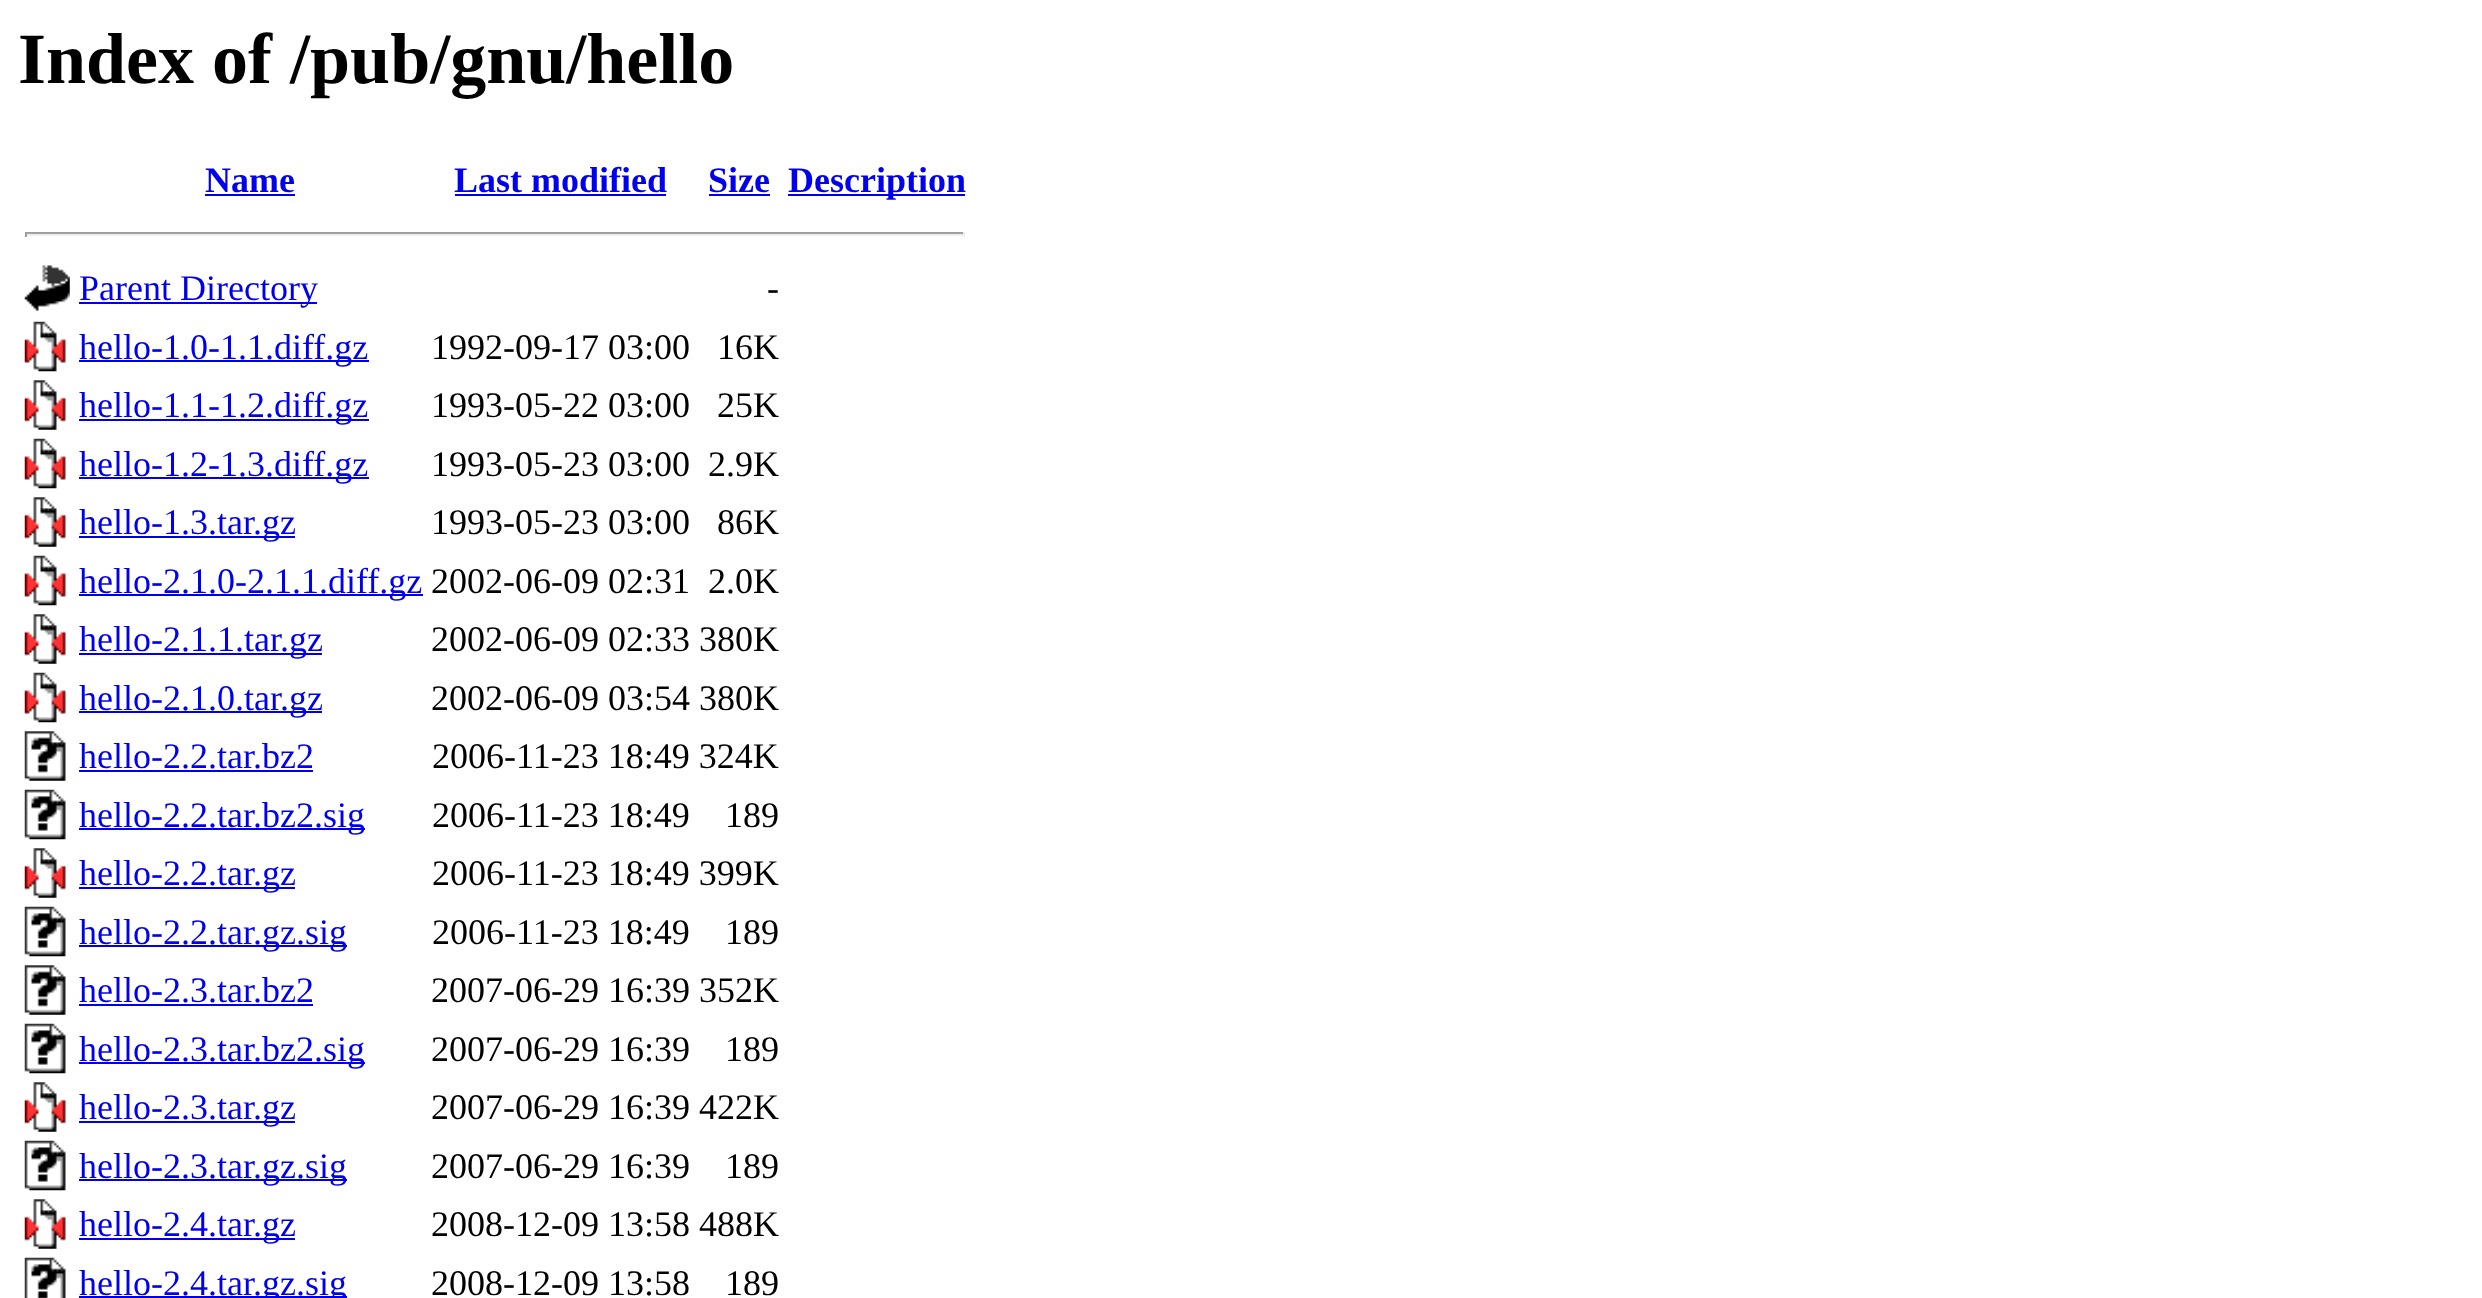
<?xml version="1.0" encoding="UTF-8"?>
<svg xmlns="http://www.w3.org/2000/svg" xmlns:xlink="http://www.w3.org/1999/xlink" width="2482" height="1298">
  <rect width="100%" height="100%" fill="#ffffff" />
  <rect x="205" y="194" width="90" height="2" fill="#0000ee" />
  <rect x="455" y="194" width="211" height="2" fill="#0000ee" />
  <rect x="709" y="194" width="61" height="2" fill="#0000ee" />
  <rect x="788" y="194" width="177" height="2" fill="#0000ee" />
  <rect x="25" y="232" width="940" height="2" fill="#9f9f9f" />
  <rect x="963" y="232" width="2" height="5" fill="#eeeeee" />
  <rect x="25" y="234" width="940" height="2" fill="#eeeeee" />
  <rect x="25" y="232" width="2" height="5" fill="#9f9f9f" />
  <image x="24" y="265" width="46" height="47" xlink:href="image1.png" />
  <rect x="79" y="302" width="238" height="2" fill="#0000ee" />
  <image x="24" y="321" width="42" height="51" xlink:href="image2.png" />
  <rect x="79" y="360" width="290" height="2" fill="#0000ee" />
  <image x="24" y="380" width="42" height="50" xlink:href="image3.png" />
  <rect x="79" y="419" width="290" height="2" fill="#0000ee" />
  <image x="24" y="438" width="42" height="51" xlink:href="image2.png" />
  <rect x="79" y="477" width="290" height="2" fill="#0000ee" />
  <image x="24" y="497" width="42" height="50" xlink:href="image3.png" />
  <rect x="79" y="536" width="216" height="2" fill="#0000ee" />
  <image x="24" y="555" width="42" height="51" xlink:href="image4.png" />
  <rect x="79" y="594" width="344" height="2" fill="#0000ee" />
  <image x="24" y="614" width="42" height="50" xlink:href="image3.png" />
  <rect x="79" y="653" width="243" height="2" fill="#0000ee" />
  <image x="24" y="672" width="42" height="51" xlink:href="image2.png" />
  <rect x="79" y="711" width="243" height="2" fill="#0000ee" />
  <image x="24" y="731" width="42" height="50" xlink:href="image5.png" />
  <rect x="79" y="770" width="234" height="2" fill="#0000ee" />
  <image x="24" y="789" width="42" height="51" xlink:href="image6.png" />
  <rect x="79" y="828" width="286" height="2" fill="#0000ee" />
  <image x="24" y="848" width="42" height="50" xlink:href="image3.png" />
  <rect x="79" y="887" width="216" height="2" fill="#0000ee" />
  <image x="24" y="906" width="42" height="51" xlink:href="image6.png" />
  <rect x="79" y="945" width="268" height="2" fill="#0000ee" />
  <image x="24" y="965" width="42" height="50" xlink:href="image5.png" />
  <rect x="79" y="1004" width="234" height="2" fill="#0000ee" />
  <image x="24" y="1023" width="42" height="51" xlink:href="image6.png" />
  <rect x="79" y="1062" width="286" height="2" fill="#0000ee" />
  <image x="24" y="1082" width="42" height="50" xlink:href="image3.png" />
  <rect x="79" y="1121" width="216" height="2" fill="#0000ee" />
  <image x="24" y="1140" width="42" height="51" xlink:href="image7.png" />
  <rect x="79" y="1179" width="268" height="2" fill="#0000ee" />
  <image x="24" y="1199" width="42" height="50" xlink:href="image3.png" />
  <rect x="79" y="1238" width="216" height="2" fill="#0000ee" />
  <image x="24" y="1257" width="42" height="41" xlink:href="image8.png" />
  <rect x="79" y="1296" width="268" height="2" fill="#0000ee" />
  <text x="18" y="83" style="font-family: Liberation Serif; font-size: 72px; font-weight: bold; fill: #000000">Index of /pub/gnu/hello</text>
  <text x="205" y="192" style="font-family: Liberation Serif; font-size: 36px; font-weight: bold; fill: #0000ee">Name</text>
  <text x="454" y="192" style="font-family: Liberation Serif; font-size: 36px; font-weight: bold; fill: #0000ee">Last modified</text>
  <text x="708" y="192" style="font-family: Liberation Serif; font-size: 36px; font-weight: bold; fill: #0000ee">Size</text>
  <text x="788" y="192" style="font-family: Liberation Serif; font-size: 36px; font-weight: bold; fill: #0000ee">Description</text>
  <text x="79" y="300" style="font-family: Liberation Serif; font-size: 36px; fill: #0000ee">Parent Directory</text>
  <text x="767" y="300" style="font-family: Liberation Serif; font-size: 36px; fill: #000000">-</text>
  <text x="79" y="359" style="font-family: Liberation Serif; font-size: 36px; fill: #0000ee">hello-1.0-1.1.diff.gz</text>
  <text x="431" y="359" style="font-family: Liberation Serif; font-size: 36px; fill: #000000">1992-09-17 03:00</text>
  <text x="717" y="359" style="font-family: Liberation Serif; font-size: 36px; fill: #000000">16K</text>
  <text x="79" y="417" style="font-family: Liberation Serif; font-size: 36px; fill: #0000ee">hello-1.1-1.2.diff.gz</text>
  <text x="431" y="417" style="font-family: Liberation Serif; font-size: 36px; fill: #000000">1993-05-22 03:00</text>
  <text x="717" y="417" style="font-family: Liberation Serif; font-size: 36px; fill: #000000">25K</text>
  <text x="79" y="476" style="font-family: Liberation Serif; font-size: 36px; fill: #0000ee">hello-1.2-1.3.diff.gz</text>
  <text x="431" y="476" style="font-family: Liberation Serif; font-size: 36px; fill: #000000">1993-05-23 03:00</text>
  <text x="708" y="476" style="font-family: Liberation Serif; font-size: 36px; fill: #000000">2.9K</text>
  <text x="79" y="534" style="font-family: Liberation Serif; font-size: 36px; fill: #0000ee">hello-1.3.tar.gz</text>
  <text x="431" y="534" style="font-family: Liberation Serif; font-size: 36px; fill: #000000">1993-05-23 03:00</text>
  <text x="717" y="534" style="font-family: Liberation Serif; font-size: 36px; fill: #000000">86K</text>
  <text x="79" y="593" style="font-family: Liberation Serif; font-size: 36px; fill: #0000ee">hello-2.1.0-2.1.1.diff.gz</text>
  <text x="431" y="593" style="font-family: Liberation Serif; font-size: 36px; fill: #000000">2002-06-09 02:31</text>
  <text x="708" y="593" style="font-family: Liberation Serif; font-size: 36px; fill: #000000">2.0K</text>
  <text x="79" y="651" style="font-family: Liberation Serif; font-size: 36px; fill: #0000ee">hello-2.1.1.tar.gz</text>
  <text x="431" y="651" style="font-family: Liberation Serif; font-size: 36px; fill: #000000">2002-06-09 02:33 380K</text>
  <text x="79" y="710" style="font-family: Liberation Serif; font-size: 36px; fill: #0000ee">hello-2.1.0.tar.gz</text>
  <text x="431" y="710" style="font-family: Liberation Serif; font-size: 36px; fill: #000000">2002-06-09 03:54 380K</text>
  <text x="79" y="768" style="font-family: Liberation Serif; font-size: 36px; fill: #0000ee">hello-2.2.tar.bz2</text>
  <text x="432" y="768" style="font-family: Liberation Serif; font-size: 36px; fill: #000000">2006-11-23 18:49 324K</text>
  <text x="79" y="827" style="font-family: Liberation Serif; font-size: 36px; fill: #0000ee">hello-2.2.tar.bz2.sig</text>
  <text x="432" y="827" style="font-family: Liberation Serif; font-size: 36px; fill: #000000">2006-11-23 18:49</text>
  <text x="725" y="827" style="font-family: Liberation Serif; font-size: 36px; fill: #000000">189</text>
  <text x="79" y="885" style="font-family: Liberation Serif; font-size: 36px; fill: #0000ee">hello-2.2.tar.gz</text>
  <text x="432" y="885" style="font-family: Liberation Serif; font-size: 36px; fill: #000000">2006-11-23 18:49 399K</text>
  <text x="79" y="944" style="font-family: Liberation Serif; font-size: 36px; fill: #0000ee">hello-2.2.tar.gz.sig</text>
  <text x="432" y="944" style="font-family: Liberation Serif; font-size: 36px; fill: #000000">2006-11-23 18:49</text>
  <text x="725" y="944" style="font-family: Liberation Serif; font-size: 36px; fill: #000000">189</text>
  <text x="79" y="1002" style="font-family: Liberation Serif; font-size: 36px; fill: #0000ee">hello-2.3.tar.bz2</text>
  <text x="431" y="1002" style="font-family: Liberation Serif; font-size: 36px; fill: #000000">2007-06-29 16:39 352K</text>
  <text x="79" y="1061" style="font-family: Liberation Serif; font-size: 36px; fill: #0000ee">hello-2.3.tar.bz2.sig</text>
  <text x="431" y="1061" style="font-family: Liberation Serif; font-size: 36px; fill: #000000">2007-06-29 16:39</text>
  <text x="725" y="1061" style="font-family: Liberation Serif; font-size: 36px; fill: #000000">189</text>
  <text x="79" y="1119" style="font-family: Liberation Serif; font-size: 36px; fill: #0000ee">hello-2.3.tar.gz</text>
  <text x="431" y="1119" style="font-family: Liberation Serif; font-size: 36px; fill: #000000">2007-06-29 16:39 422K</text>
  <text x="79" y="1178" style="font-family: Liberation Serif; font-size: 36px; fill: #0000ee">hello-2.3.tar.gz.sig</text>
  <text x="431" y="1178" style="font-family: Liberation Serif; font-size: 36px; fill: #000000">2007-06-29 16:39</text>
  <text x="725" y="1178" style="font-family: Liberation Serif; font-size: 36px; fill: #000000">189</text>
  <text x="79" y="1236" style="font-family: Liberation Serif; font-size: 36px; fill: #0000ee">hello-2.4.tar.gz</text>
  <text x="431" y="1236" style="font-family: Liberation Serif; font-size: 36px; fill: #000000">2008-12-09 13:58 488K</text>
  <text x="79" y="1295" style="font-family: Liberation Serif; font-size: 36px; fill: #0000ee">hello-2.4.tar.gz.sig</text>
  <text x="431" y="1295" style="font-family: Liberation Serif; font-size: 36px; fill: #000000">2008-12-09 13:58</text>
  <text x="725" y="1295" style="font-family: Liberation Serif; font-size: 36px; fill: #000000">189</text>
</svg>
